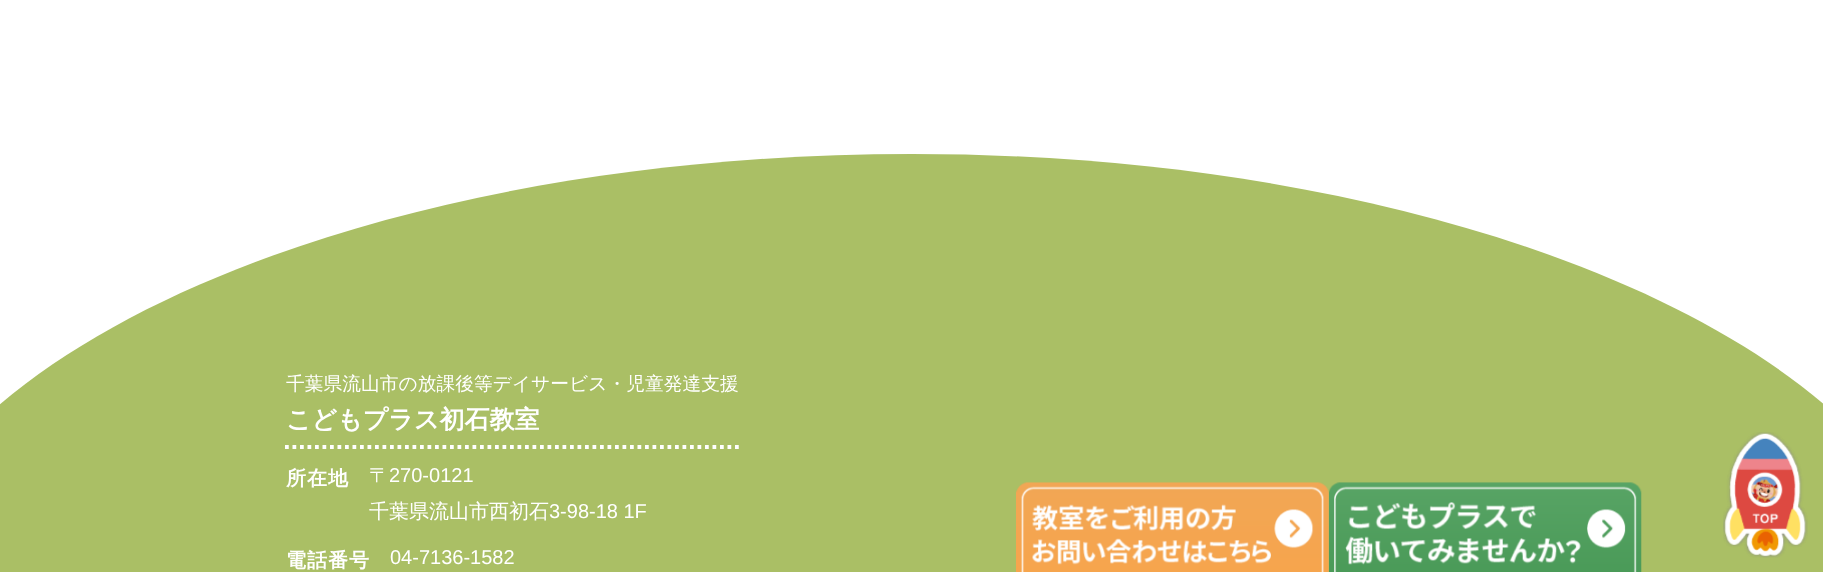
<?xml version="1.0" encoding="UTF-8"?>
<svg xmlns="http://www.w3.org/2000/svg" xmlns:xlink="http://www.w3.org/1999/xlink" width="1823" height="572">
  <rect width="100%" height="100%" fill="#ffffff" />
  <path d="M 912 154 c 573 0 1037 214 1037 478 v 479 h -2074 v -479 c 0 -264 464 -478 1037 -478 z" fill="#aabf65" />
  <path d="M 285 447 h 454" fill="none" stroke="#ffffff" stroke-width="3.8" stroke-dasharray="3.75 3.75" />
  <image x="1016" y="482" width="314" height="90" xlink:href="image1.png" />
  <image x="1329" y="482" width="313" height="90" xlink:href="image2.png" />
  <image x="1723" y="432" width="85" height="126" xlink:href="image3.png" />
  <text x="286" y="390" style="font-family: WenQuanYi Zen Hei; font-size: 18.75px; font-weight: 500; fill: #ffffff">千葉県流山市の放課後等デイサービス・児童発達支援</text>
  <text x="286" y="428" style="font-family: WenQuanYi Zen Hei; font-size: 25px; font-weight: bold; fill: #ffffff">こどもプラス初石教室</text>
  <text x="286" y="485" style="font-family: WenQuanYi Zen Hei; font-size: 20px; font-weight: bold; letter-spacing: 1px; fill: #ffffff">所在地</text>
  <text x="369" y="482" style="font-family: WenQuanYi Zen Hei; font-size: 20px; font-weight: 500; fill: #ffffff">〒</text>
  <text x="389" y="482" style="font-family: Liberation Sans; font-size: 20px; fill: #ffffff">270-0121</text>
  <text x="369" y="518" style="font-family: WenQuanYi Zen Hei; font-size: 20px; font-weight: 500; fill: #ffffff">千葉県流山市西初石</text>
  <text x="549" y="518" style="font-family: Liberation Sans; font-size: 20px; fill: #ffffff">3-98-18 1F</text>
  <text x="286" y="567" style="font-family: WenQuanYi Zen Hei; font-size: 20px; font-weight: bold; letter-spacing: 1px; fill: #ffffff">電話番号</text>
  <text x="390" y="564" style="font-family: Liberation Sans; font-size: 20px; fill: #ffffff">04-7136-1582</text>
</svg>
